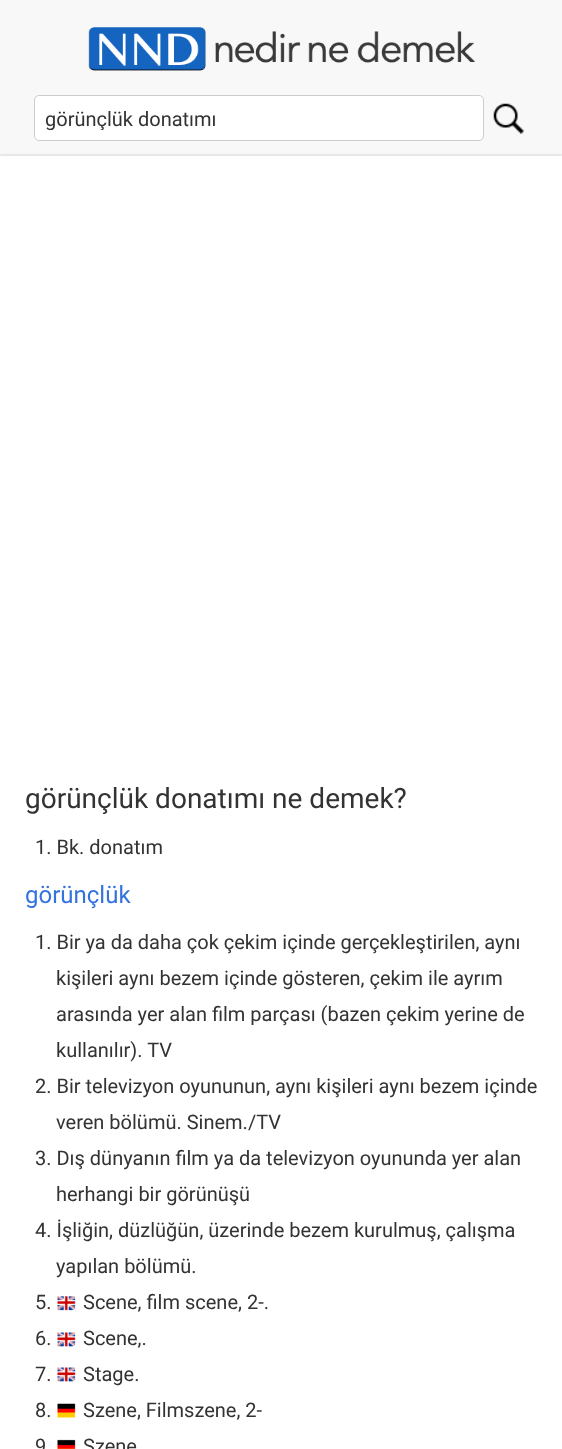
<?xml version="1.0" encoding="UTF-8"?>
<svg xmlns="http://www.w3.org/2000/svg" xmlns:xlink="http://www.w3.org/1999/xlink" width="562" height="1449">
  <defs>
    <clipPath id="clip1"><rect x="45" y="106" width="428" height="24" /></clipPath>
  </defs>
  <rect width="100%" height="100%" fill="#f1f1f1" />
  <rect width="562" height="154" fill="#f8f8f8" />
  <rect y="154" width="562" height="1" fill="#eeeeee" />
  <image x="88" y="27" width="388" height="44" xlink:href="image1.png" />
  <rect x="34.5" y="95.5" width="449" height="45" rx="4.5" fill="#ffffff" stroke="#cccccc" />
  <image x="493" y="103" width="31" height="31" xlink:href="image2.png" />
  <rect y="158" width="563" height="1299" fill="#000000" fill-opacity="0.25" filter="blur(2.5px)" />
  <rect y="156" width="562" height="1293" fill="#ffffff" />
  <image x="57" y="1296" width="19" height="15" xlink:href="image3.png" />
  <image x="57" y="1332" width="19" height="15" xlink:href="image4.png" />
  <image x="57" y="1367" width="19" height="15" xlink:href="image4.png" />
  <image x="57" y="1403" width="19" height="15" xlink:href="image5.png" />
  <image x="57" y="1439" width="19" height="10" xlink:href="image6.png" />
  <g clip-path="url(#clip1)">
    <text x="45" y="126" style="font-family: Roboto; font-size: 20px; fill: #333333">görünçlük donatımı</text>
  </g>
  <text x="25" y="808" style="font-family: Roboto; font-size: 28px; fill: #333333">görünçlük donatımı ne demek?</text>
  <text x="35" y="854" style="font-family: Roboto; font-size: 20px; fill: #333333">1. Bk. donatım</text>
  <text x="25" y="903" style="font-family: Roboto; font-size: 24px; fill: #3372df">görünçlük</text>
  <text x="35" y="949" style="font-family: Roboto; font-size: 20px; fill: #333333">1. Bir ya da daha çok çekim içinde gerçekleştirilen, aynı</text>
  <text x="56" y="985" style="font-family: Roboto; font-size: 20px; fill: #333333">kişileri aynı bezem içinde gösteren, çekim ile ayrım</text>
  <text x="56" y="1021" style="font-family: Roboto; font-size: 20px; fill: #333333">arasında yer alan film parçası (bazen çekim yerine de</text>
  <text x="56" y="1057" style="font-family: Roboto; font-size: 20px; fill: #333333">kullanılır). TV</text>
  <text x="35" y="1093" style="font-family: Roboto; font-size: 20px; fill: #333333">2. Bir televizyon oyununun, aynı kişileri aynı bezem içinde</text>
  <text x="56" y="1129" style="font-family: Roboto; font-size: 20px; fill: #333333">veren bölümü. Sinem./TV</text>
  <text x="35" y="1165" style="font-family: Roboto; font-size: 20px; fill: #333333">3. Dış dünyanın film ya da televizyon oyununda yer alan</text>
  <text x="56" y="1201" style="font-family: Roboto; font-size: 20px; fill: #333333">herhangi bir görünüşü</text>
  <text x="35" y="1237" style="font-family: Roboto; font-size: 20px; fill: #333333">4. İşliğin, düzlüğün, üzerinde bezem kurulmuş, çalışma</text>
  <text x="56" y="1273" style="font-family: Roboto; font-size: 20px; fill: #333333">yapılan bölümü.</text>
  <text x="35" y="1309" style="font-family: Roboto; font-size: 20px; fill: #333333">5.</text>
  <text x="83" y="1309" style="font-family: Roboto; font-size: 20px; fill: #333333">Scene, film scene, 2-.</text>
  <text x="35" y="1345" style="font-family: Roboto; font-size: 20px; fill: #333333">6.</text>
  <text x="83" y="1345" style="font-family: Roboto; font-size: 20px; fill: #333333">Scene,.</text>
  <text x="35" y="1381" style="font-family: Roboto; font-size: 20px; fill: #333333">7.</text>
  <text x="83" y="1381" style="font-family: Roboto; font-size: 20px; fill: #333333">Stage.</text>
  <text x="35" y="1417" style="font-family: Roboto; font-size: 20px; fill: #333333">8.</text>
  <text x="83" y="1417" style="font-family: Roboto; font-size: 20px; fill: #333333">Szene, Filmszene, 2-</text>
  <text x="35" y="1453" style="font-family: Roboto; font-size: 20px; fill: #333333">9</text>
  <text x="83" y="1453" style="font-family: Roboto; font-size: 20px; fill: #333333">Szene</text>
</svg>
